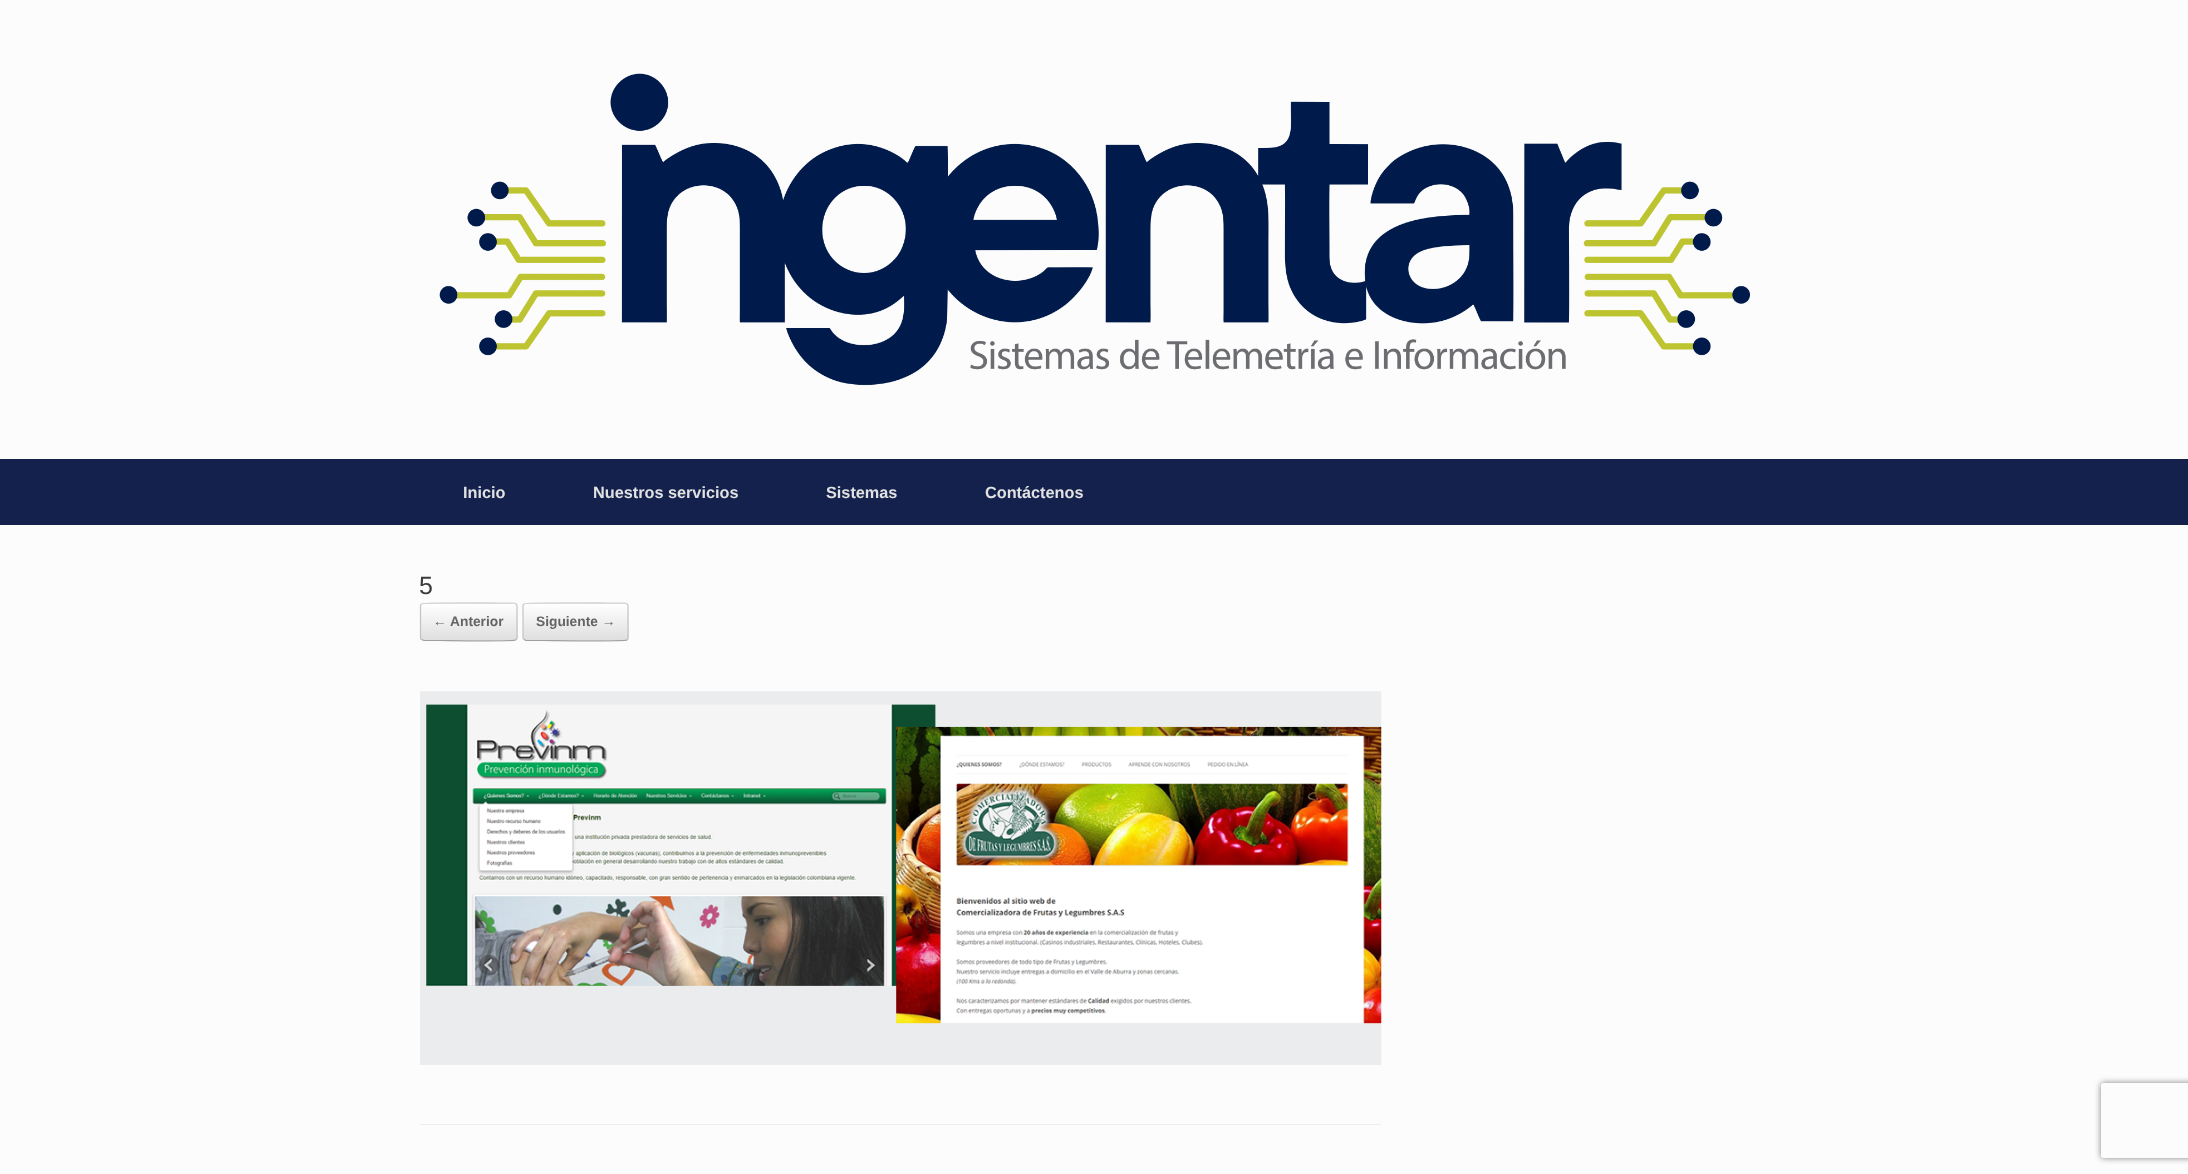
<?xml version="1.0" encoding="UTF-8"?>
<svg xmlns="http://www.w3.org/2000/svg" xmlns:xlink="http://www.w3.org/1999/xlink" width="2188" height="1174">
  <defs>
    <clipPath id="clip1"><rect x="420" y="603" width="98" height="38" rx="4" /></clipPath>
    <linearGradient id="g1" gradientUnits="userSpaceOnUse" x1="421" y1="604" x2="421" y2="568"><stop offset="0" stop-color="#dfdfdf" /><stop offset="1" stop-color="#ffffff" /></linearGradient>
    <linearGradient id="g2" gradientUnits="userSpaceOnUse" x1="421" y1="640" x2="421" y2="604"><stop offset="0" stop-color="#dfdfdf" /><stop offset="1" stop-color="#ffffff" /></linearGradient>
    <linearGradient id="g3" gradientUnits="userSpaceOnUse" x1="421" y1="676" x2="421" y2="640"><stop offset="0" stop-color="#dfdfdf" /><stop offset="1" stop-color="#ffffff" /></linearGradient>
    <clipPath id="clip2"><rect x="523" y="603" width="106" height="38" rx="4" /></clipPath>
    <linearGradient id="g4" gradientUnits="userSpaceOnUse" x1="524" y1="604" x2="524" y2="568"><stop offset="0" stop-color="#dfdfdf" /><stop offset="1" stop-color="#ffffff" /></linearGradient>
    <linearGradient id="g5" gradientUnits="userSpaceOnUse" x1="524" y1="640" x2="524" y2="604"><stop offset="0" stop-color="#dfdfdf" /><stop offset="1" stop-color="#ffffff" /></linearGradient>
    <clipPath id="clip3"><path d="M 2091 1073 h 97 v 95 h -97 z m 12.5 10 h 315 c 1.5 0 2.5 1 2.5 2.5 v 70 c 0 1.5 -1 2.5 -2.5 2.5 h -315 c -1.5 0 -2.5 -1 -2.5 -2.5 v -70 c 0 -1.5 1 -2.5 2.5 -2.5 z" clip-rule="evenodd" /></clipPath>
  </defs>
  <rect width="100%" height="100%" fill="#fcfcfc" />
  <image x="439" y="73" width="1311" height="313" xlink:href="image1.png" />
  <rect y="459" width="2188" height="66" fill="#13214c" />
  <rect x="420" y="1124" width="961" height="1" fill="#eeeeee" />
  <g clip-path="url(#clip1)">
    <rect x="420" y="603" width="98" height="1" fill="url(#g1)" />
    <rect x="420" y="604" width="98" height="36" fill="url(#g2)" />
    <rect x="420" y="640" width="98" height="1" fill="url(#g3)" />
  </g>
  <path d="M 421.5 604 h 0.5 c 2 -2 68.5 -1 77 -1 h 15 l 2 1" fill="none" stroke="#d2d2d2" stroke-width="1.2" />
  <path d="M 516 604 c 0.5 0.5 1 1.5 1 2 v 31.5 c 0 1 -0.5 1.5 -1 2" fill="none" stroke="#c3c3c3" stroke-width="1.2" />
  <path d="M 516 639.5 l -0.5 0.5 c -2 1.5 -68.5 0.5 -76.5 0.5 h -15 l -2.5 -1" fill="none" stroke="#9f9f9f" stroke-width="1.2" />
  <path d="M 421.5 639.5 c -0.5 -0.5 -1 -1 -1 -2 v -31.5 c 0 -0.5 0.5 -1.5 1 -2" fill="none" stroke="#c3c3c3" stroke-width="1.2" />
  <g clip-path="url(#clip2)">
    <rect x="523" y="603" width="106" height="1" fill="url(#g4)" />
    <rect x="523" y="604" width="106" height="36" fill="url(#g5)" />
  </g>
  <path d="M 524 604 h 0.5 c 2 -2 75 -1 84 -1 h 16.5 l 2 1" fill="none" stroke="#d2d2d2" stroke-width="1.2" />
  <path d="M 627 604 c 1 0.5 1 1.5 1 2 v 31.5 c 0 1 0 1.5 -1 2" fill="none" stroke="#c3c3c3" stroke-width="1.2" />
  <path d="M 627 639.5 v 0.5 c -2 1.5 -75.5 0.5 -84.5 0.5 h -16.5 l -2 -1" fill="none" stroke="#9f9f9f" stroke-width="1.2" />
  <path d="M 524 639.5 c -0.5 -0.5 -1 -1 -1 -2 v -31.5 c 0 -0.5 0.5 -1.5 1 -2" fill="none" stroke="#c3c3c3" stroke-width="1.2" />
  <image x="420" y="691" width="962" height="374" xlink:href="image2.png" />
  <g clip-path="url(#clip3)">
    <rect x="2101" y="1083" width="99" height="75" rx="2.5" fill="#808080" filter="blur(3px)" />
  </g>
  <text x="463" y="498" style="font-family: Liberation Sans; font-size: 16.25px; font-weight: bold; fill: #e2e2e2">Inicio</text>
  <text x="593" y="498" style="font-family: Liberation Sans; font-size: 16.25px; font-weight: bold; fill: #e2e2e2">Nuestros servicios</text>
  <text x="826" y="498" style="font-family: Liberation Sans; font-size: 16.25px; font-weight: bold; fill: #e2e2e2">Sistemas</text>
  <text x="985" y="498" style="font-family: Liberation Sans; font-size: 16.25px; font-weight: bold; fill: #e2e2e2">Contáctenos</text>
  <text x="419" y="594" style="font-family: Liberation Sans; font-size: 25px; fill: #3b3b3b">5</text>
  <text x="433" y="626" style="font-family: Liberation Sans; font-size: 13.75px; font-weight: bold; fill: #646464">← Anterior</text>
  <text x="536" y="626" style="font-family: Liberation Sans; font-size: 13.75px; font-weight: bold; fill: #646464">Siguiente →</text>
</svg>
